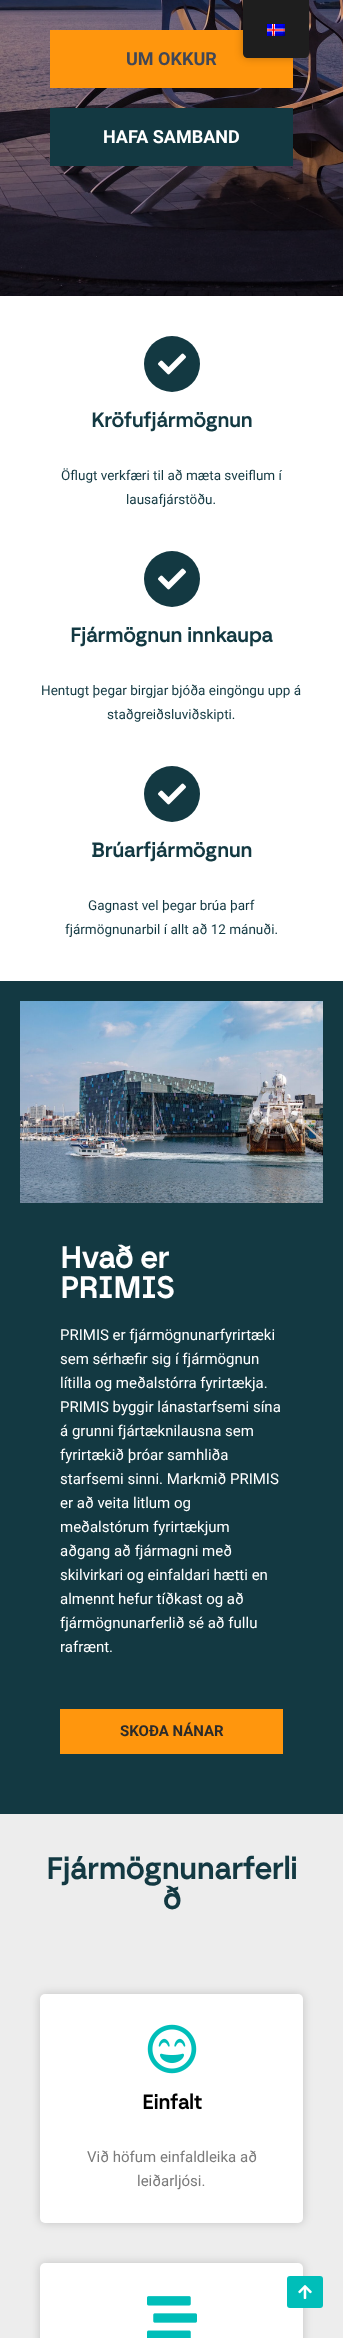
<?xml version="1.0" encoding="UTF-8"?>
<svg xmlns="http://www.w3.org/2000/svg" xmlns:xlink="http://www.w3.org/1999/xlink" width="343" height="2338">
  <rect width="100%" height="100%" fill="#ffffff" />
  <image x="0" y="0" width="343" height="296" xlink:href="image2.png" />
  <rect x="50" y="30" width="243" height="58" fill="#ff960d" />
  <rect x="243" width="66" height="58" rx="5" fill="#000000" fill-opacity="0.25" filter="blur(4px)" />
  <path d="M 243 0 h 66 v 53 c 0 3 -2 5 -5 5 h -56 c -3 0 -5 -2 -5 -5 z" fill="#1e1e1e" />
  <image x="267" y="24" width="18" height="12" xlink:href="image1.png" />
  <rect x="50" y="108" width="243" height="58" fill="#133942" />
  <circle cx="172" cy="364" r="28" fill="#133942" />
  <image x="158" y="353" width="28" height="22" xlink:href="image3.png" />
  <circle cx="172" cy="579" r="28" fill="#133942" />
  <image x="158" y="568" width="28" height="22" xlink:href="image3.png" />
  <circle cx="172" cy="794" r="28" fill="#133942" />
  <image x="158" y="783" width="28" height="22" xlink:href="image3.png" />
  <rect y="981" width="343" height="833" fill="#133942" />
  <image x="20" y="1001" width="303" height="202" xlink:href="image4.png" />
  <rect x="60" y="1709" width="223" height="45" fill="#ff960d" />
  <rect y="1814" width="343" height="524" fill="#ededed" />
  <rect x="40" y="1994" width="263" height="229" rx="5" fill="#000000" fill-opacity="0.18" filter="blur(5px)" />
  <rect x="40" y="1994" width="263" height="229" rx="5" fill="#ffffff" />
  <image x="147" y="2024" width="50" height="50" xlink:href="image5.png" />
  <rect x="40" y="2263" width="263" height="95" rx="5" fill="#000000" fill-opacity="0.18" filter="blur(5px)" />
  <rect x="40" y="2263" width="263" height="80" rx="5" fill="#ffffff" />
  <image x="147" y="2296" width="50" height="42" xlink:href="image6.png" />
  <rect x="287" y="2276" width="36" height="32" rx="3" fill="#00beb9" />
  <image x="298" y="2285" width="14" height="14" xlink:href="image7.png" />
  <text x="126" y="65" style="font-family: Roboto; font-size: 18px; font-weight: bold; fill: #414756">UM OKKUR</text>
  <text x="103" y="143" style="font-family: Roboto; font-size: 18px; font-weight: bold; fill: #ffffff">HAFA SAMBAND</text>
  <text x="91" y="427" style="font-family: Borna; font-size: 20px; font-weight: bold; fill: #133942">Kröfufjármögnun</text>
  <text x="61" y="480" style="font-family: Roboto; font-size: 13.5px; fill: #133942">Öflugt verkfæri til að mæta sveiflum í</text>
  <text x="126" y="504" style="font-family: Roboto; font-size: 13.5px; fill: #133942">lausafjárstöðu.</text>
  <text x="70" y="642" style="font-family: Borna; font-size: 20px; font-weight: bold; fill: #133942">Fjármögnun innkaupa</text>
  <text x="41" y="695" style="font-family: Roboto; font-size: 13.5px; fill: #133942">Hentugt þegar birgjar bjóða eingöngu upp á</text>
  <text x="107" y="719" style="font-family: Roboto; font-size: 13.5px; fill: #133942">staðgreiðsluviðskipti.</text>
  <text x="91" y="857" style="font-family: Borna; font-size: 20px; font-weight: bold; fill: #133942">Brúarfjármögnun</text>
  <text x="88" y="910" style="font-family: Roboto; font-size: 13.5px; fill: #133942">Gagnast vel þegar brúa þarf</text>
  <text x="65" y="934" style="font-family: Roboto; font-size: 13.5px; fill: #133942">fjármögnunarbil í allt að 12 mánuði.</text>
  <text x="60" y="1268" style="font-family: Borna; font-size: 30px; font-weight: bold; fill: #ffffff">Hvað er</text>
  <text x="60" y="1298" style="font-family: Borna; font-size: 30px; font-weight: bold; fill: #ffffff">PRIMIS</text>
  <text x="60" y="1340" style="font-family: Roboto; font-size: 15px; fill: #ffffff">PRIMIS er fjármögnunarfyrirtæki</text>
  <text x="60" y="1364" style="font-family: Roboto; font-size: 15px; fill: #ffffff">sem sérhæfir sig í fjármögnun</text>
  <text x="60" y="1388" style="font-family: Roboto; font-size: 15px; fill: #ffffff">lítilla og meðalstórra fyrirtækja.</text>
  <text x="60" y="1412" style="font-family: Roboto; font-size: 15px; fill: #ffffff">PRIMIS byggir lánastarfsemi sína</text>
  <text x="60" y="1436" style="font-family: Roboto; font-size: 15px; fill: #ffffff">á grunni fjártæknilausna sem</text>
  <text x="60" y="1460" style="font-family: Roboto; font-size: 15px; fill: #ffffff">fyrirtækið þróar samhliða</text>
  <text x="60" y="1484" style="font-family: Roboto; font-size: 15px; fill: #ffffff">starfsemi sinni. Markmið PRIMIS</text>
  <text x="60" y="1508" style="font-family: Roboto; font-size: 15px; fill: #ffffff">er að veita litlum og</text>
  <text x="60" y="1532" style="font-family: Roboto; font-size: 15px; fill: #ffffff">meðalstórum fyrirtækjum</text>
  <text x="60" y="1556" style="font-family: Roboto; font-size: 15px; fill: #ffffff">aðgang að fjármagni með</text>
  <text x="60" y="1580" style="font-family: Roboto; font-size: 15px; fill: #ffffff">skilvirkari og einfaldari hætti en</text>
  <text x="60" y="1604" style="font-family: Roboto; font-size: 15px; fill: #ffffff">almennt hefur tíðkast og að</text>
  <text x="60" y="1628" style="font-family: Roboto; font-size: 15px; fill: #ffffff">fjármögnunarferlið sé að fullu</text>
  <text x="60" y="1652" style="font-family: Roboto; font-size: 15px; fill: #ffffff">rafrænt.</text>
  <text x="120" y="1736" style="font-family: Roboto; font-size: 15px; font-weight: bold; fill: #2b2b2b">SKOÐA NÁNAR</text>
  <text x="46" y="1879" style="font-family: Borna; font-size: 30px; font-weight: bold; fill: #133942">Fjármögnunarferli</text>
  <text x="163" y="1909" style="font-family: Borna; font-size: 30px; font-weight: bold; fill: #133942">ð</text>
  <text x="142" y="2109" style="font-family: Borna; font-size: 20px; font-weight: bold; fill: #000000">Einfalt</text>
  <text x="87" y="2162" style="font-family: Roboto; font-size: 15px; fill: #7a7a7a">Við höfum einfaldleika að</text>
  <text x="137" y="2186" style="font-family: Roboto; font-size: 15px; fill: #7a7a7a">leiðarljósi.</text>
</svg>
